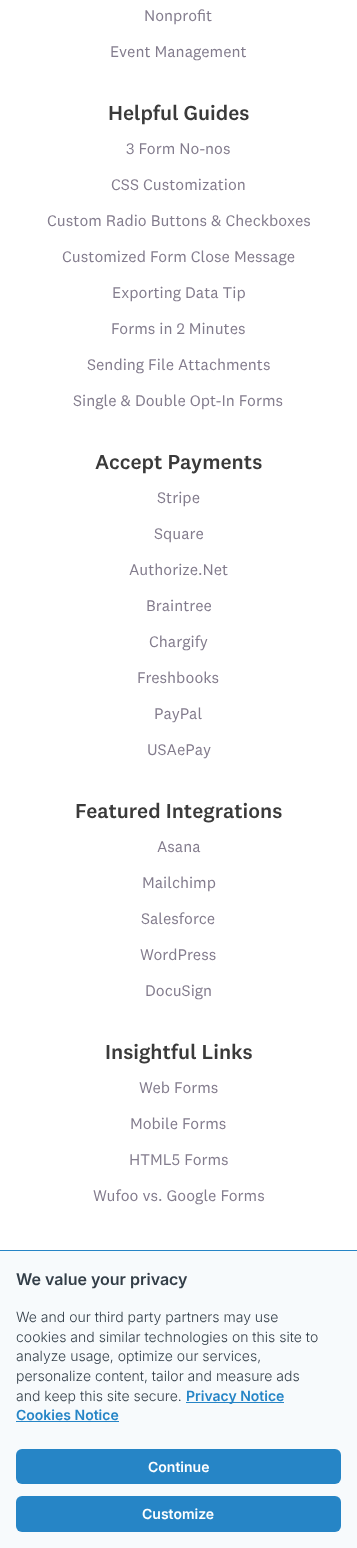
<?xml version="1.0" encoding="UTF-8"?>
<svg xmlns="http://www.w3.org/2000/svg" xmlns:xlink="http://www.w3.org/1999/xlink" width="357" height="1548">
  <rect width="100%" height="100%" fill="#ffffff" />
  <rect y="1251" width="357" height="297" fill="#f7fafc" />
  <rect y="1250" width="357" height="1" fill="#2685c6" />
  <rect x="186" y="1402" width="98" height="1" fill="#2685c6" />
  <rect x="16" y="1421" width="103" height="1" fill="#2685c6" />
  <rect x="16" y="1449" width="325" height="35" rx="6" fill="#2685c6" />
  <rect x="16" y="1496" width="325" height="36" rx="6" fill="#2685c6" />
  <text x="144" y="21" style="font-family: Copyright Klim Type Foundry; font-size: 16px; fill: #837c8d">Nonprofit</text>
  <text x="110" y="57" style="font-family: Copyright Klim Type Foundry; font-size: 16px; fill: #837c8d">Event Management</text>
  <text x="108" y="120" style="font-family: Copyright Klim Type Foundry; font-size: 21px; font-weight: 500; fill: #3a3a3a">Helpful Guides</text>
  <text x="126" y="154" style="font-family: Copyright Klim Type Foundry; font-size: 16px; fill: #837c8d">3 Form No-nos</text>
  <text x="111" y="190" style="font-family: Copyright Klim Type Foundry; font-size: 16px; fill: #837c8d">CSS Customization</text>
  <text x="47" y="226" style="font-family: Copyright Klim Type Foundry; font-size: 16px; fill: #837c8d">Custom Radio Buttons &amp; Checkboxes</text>
  <text x="62" y="262" style="font-family: Copyright Klim Type Foundry; font-size: 16px; fill: #837c8d">Customized Form Close Message</text>
  <text x="112" y="298" style="font-family: Copyright Klim Type Foundry; font-size: 16px; fill: #837c8d">Exporting Data Tip</text>
  <text x="111" y="334" style="font-family: Copyright Klim Type Foundry; font-size: 16px; fill: #837c8d">Forms in 2 Minutes</text>
  <text x="87" y="370" style="font-family: Copyright Klim Type Foundry; font-size: 16px; fill: #837c8d">Sending File Attachments</text>
  <text x="73" y="406" style="font-family: Copyright Klim Type Foundry; font-size: 16px; fill: #837c8d">Single &amp; Double Opt-In Forms</text>
  <text x="95" y="469" style="font-family: Copyright Klim Type Foundry; font-size: 21px; font-weight: 500; fill: #3a3a3a">Accept Payments</text>
  <text x="157" y="503" style="font-family: Copyright Klim Type Foundry; font-size: 16px; fill: #837c8d">Stripe</text>
  <text x="154" y="539" style="font-family: Copyright Klim Type Foundry; font-size: 16px; fill: #837c8d">Square</text>
  <text x="129" y="575" style="font-family: Copyright Klim Type Foundry; font-size: 16px; fill: #837c8d">Authorize.Net</text>
  <text x="146" y="611" style="font-family: Copyright Klim Type Foundry; font-size: 16px; fill: #837c8d">Braintree</text>
  <text x="149" y="647" style="font-family: Copyright Klim Type Foundry; font-size: 16px; fill: #837c8d">Chargify</text>
  <text x="137" y="683" style="font-family: Copyright Klim Type Foundry; font-size: 16px; fill: #837c8d">Freshbooks</text>
  <text x="154" y="719" style="font-family: Copyright Klim Type Foundry; font-size: 16px; fill: #837c8d">PayPal</text>
  <text x="147" y="755" style="font-family: Copyright Klim Type Foundry; font-size: 16px; fill: #837c8d">USAePay</text>
  <text x="75" y="818" style="font-family: Copyright Klim Type Foundry; font-size: 21px; font-weight: 500; fill: #3a3a3a">Featured Integrations</text>
  <text x="157" y="852" style="font-family: Copyright Klim Type Foundry; font-size: 16px; fill: #837c8d">Asana</text>
  <text x="142" y="888" style="font-family: Copyright Klim Type Foundry; font-size: 16px; fill: #837c8d">Mailchimp</text>
  <text x="141" y="924" style="font-family: Copyright Klim Type Foundry; font-size: 16px; fill: #837c8d">Salesforce</text>
  <text x="140" y="960" style="font-family: Copyright Klim Type Foundry; font-size: 16px; fill: #837c8d">WordPress</text>
  <text x="145" y="996" style="font-family: Copyright Klim Type Foundry; font-size: 16px; fill: #837c8d">DocuSign</text>
  <text x="105" y="1059" style="font-family: Copyright Klim Type Foundry; font-size: 21px; font-weight: 500; fill: #3a3a3a">Insightful Links</text>
  <text x="139" y="1093" style="font-family: Copyright Klim Type Foundry; font-size: 16px; fill: #837c8d">Web Forms</text>
  <text x="130" y="1129" style="font-family: Copyright Klim Type Foundry; font-size: 16px; fill: #837c8d">Mobile Forms</text>
  <text x="129" y="1165" style="font-family: Copyright Klim Type Foundry; font-size: 16px; fill: #837c8d">HTML5 Forms</text>
  <text x="93" y="1201" style="font-family: Copyright Klim Type Foundry; font-size: 16px; fill: #837c8d">Wufoo vs. Google Forms</text>
  <text x="16" y="1285" style="font-family: Inter; font-size: 16px; font-weight: 600; fill: #333e48">We value your privacy</text>
  <text x="16" y="1322" style="font-family: Inter; font-size: 14px; font-weight: 300; fill: #333e48">We and our third party partners may use</text>
  <text x="16" y="1342" style="font-family: Inter; font-size: 14px; font-weight: 300; fill: #333e48">cookies and similar technologies on this site to</text>
  <text x="16" y="1361" style="font-family: Inter; font-size: 14px; font-weight: 300; fill: #333e48">analyze usage, optimize our services,</text>
  <text x="16" y="1381" style="font-family: Inter; font-size: 14px; font-weight: 300; fill: #333e48">personalize content, tailor and measure ads</text>
  <text x="16" y="1401" style="font-family: Inter; font-size: 14px; font-weight: 300; fill: #333e48">and keep this site secure.</text>
  <text x="186" y="1401" style="font-family: Inter; font-size: 14px; font-weight: 600; fill: #2685c6">Privacy Notice</text>
  <text x="16" y="1420" style="font-family: Inter; font-size: 14px; font-weight: 600; fill: #2685c6">Cookies Notice</text>
  <text x="148" y="1472" style="font-family: Inter; font-size: 14px; font-weight: 600; fill: #ffffff">Continue</text>
  <text x="142" y="1519" style="font-family: Inter; font-size: 14px; font-weight: 600; fill: #ffffff">Customize</text>
</svg>
